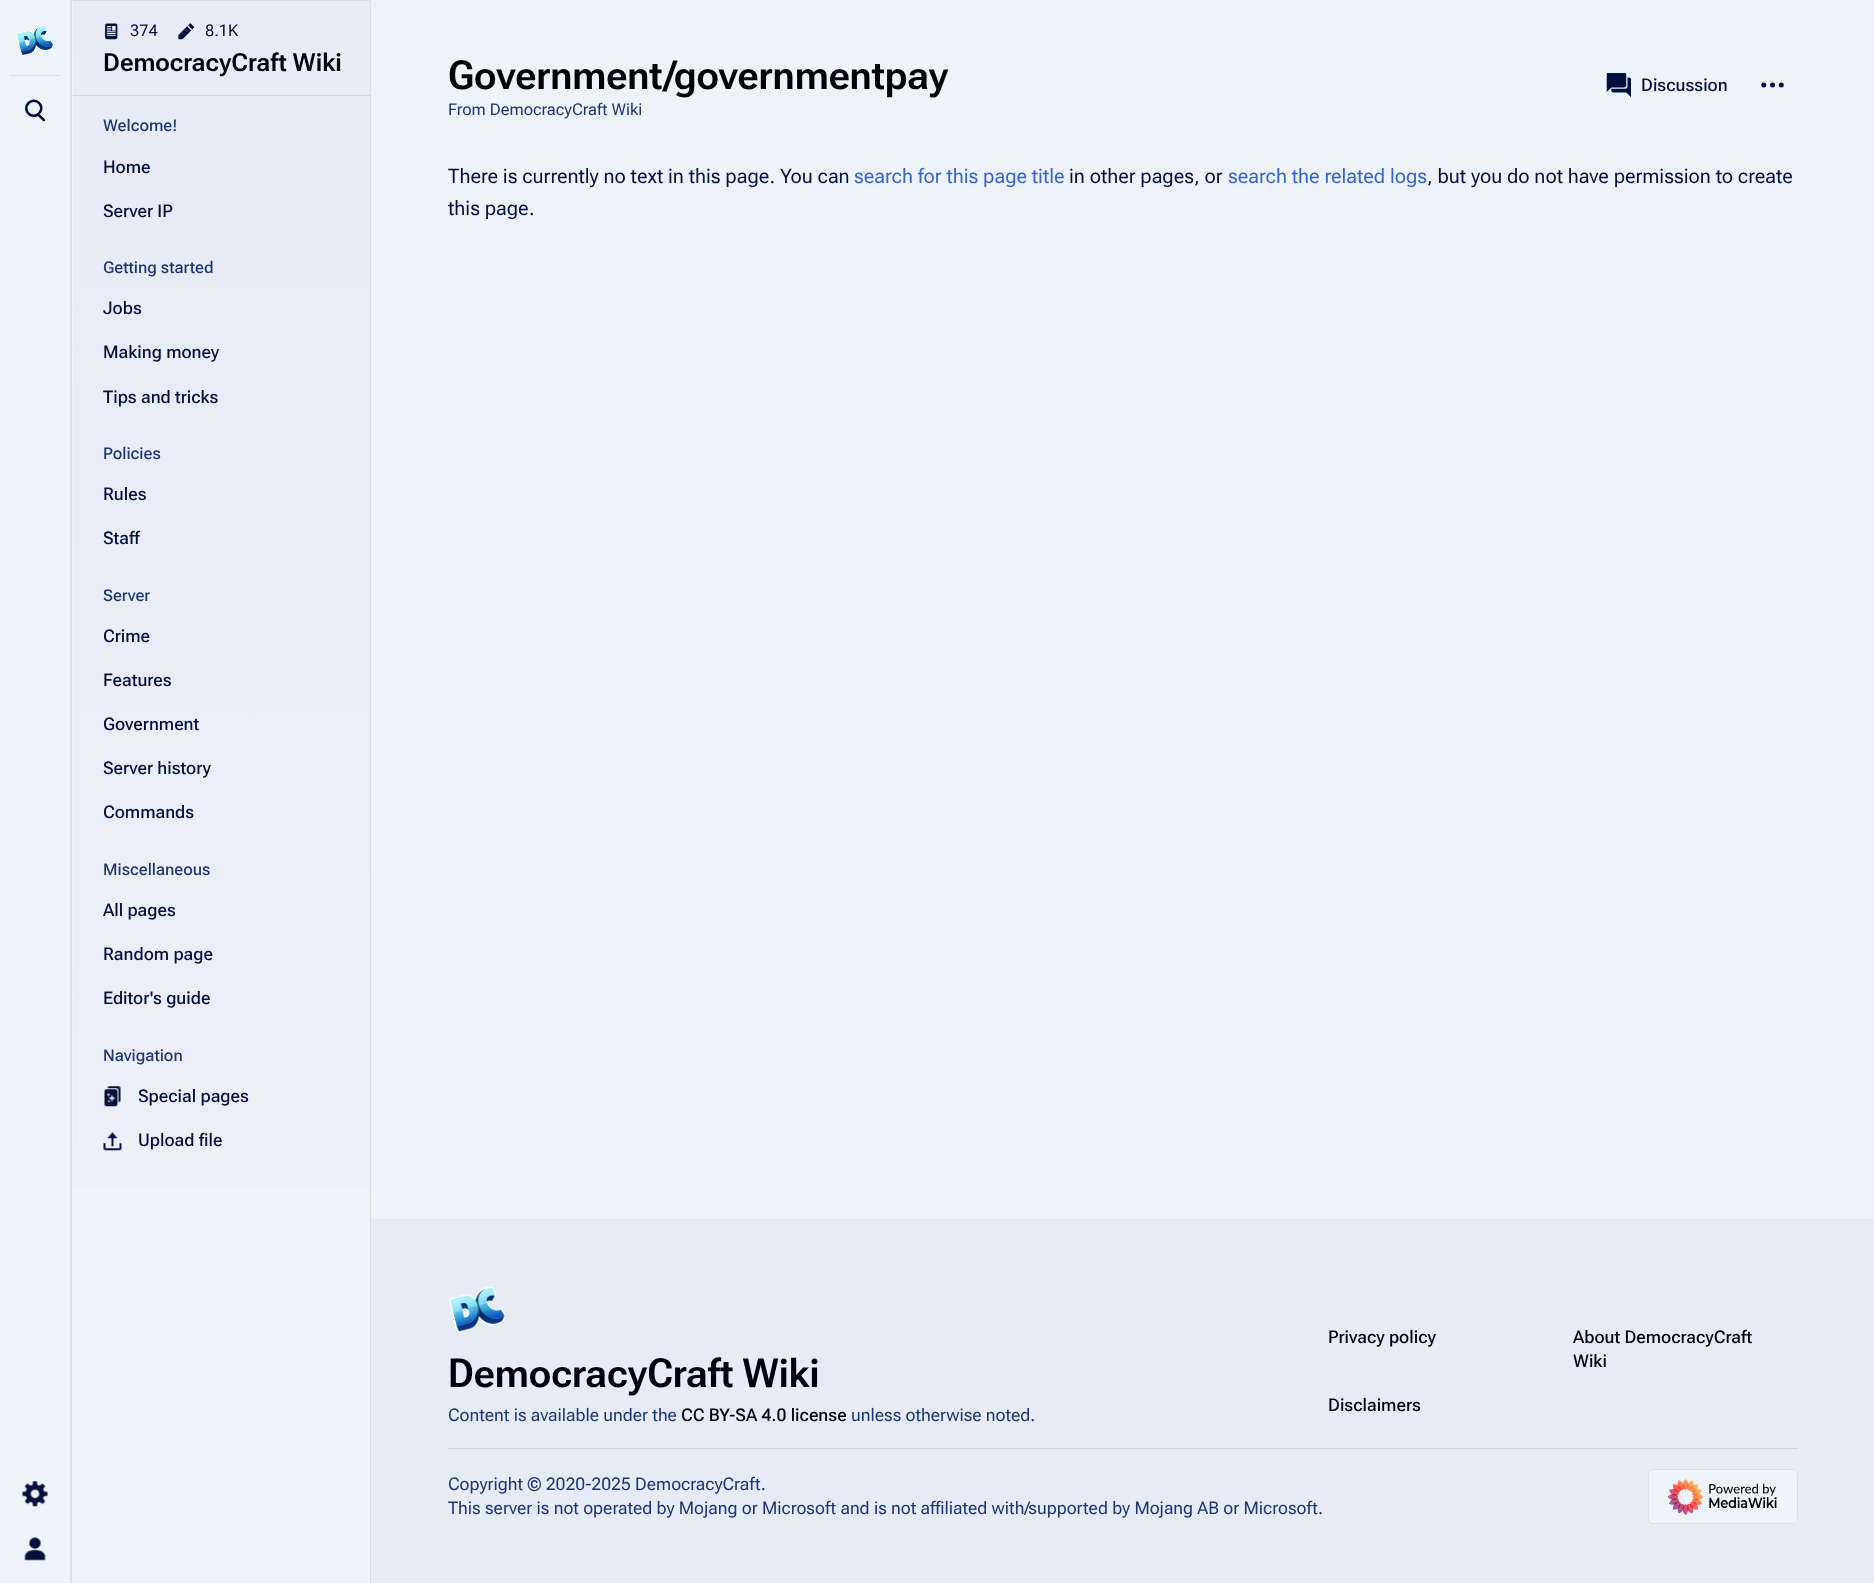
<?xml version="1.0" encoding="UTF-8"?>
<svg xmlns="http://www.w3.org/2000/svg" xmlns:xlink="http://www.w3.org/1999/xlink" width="1874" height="1583">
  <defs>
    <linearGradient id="g1" gradientUnits="userSpaceOnUse" x1="221" y1="1.2" x2="221" y2="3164"><stop offset="0" stop-color="#e6ebf6" /><stop offset="0.5" stop-color="#eff1f8" /></linearGradient>
  </defs>
  <rect width="100%" height="100%" fill="#eef2f9" />
  <rect x="70" width="1" height="1583" fill="#dbdfe5" />
  <rect x="10" y="75" width="50" height="1" fill="#dbdfe5" />
  <image x="16" y="25" width="38" height="31" xlink:href="image1.png" />
  <rect x="71.5" y="0.5" width="299" height="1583" fill="none" stroke="#dbdfe5" />
  <rect x="73" y="1" width="297" height="1186" fill="url(#g1)" />
  <rect x="73" y="95" width="297" height="1" fill="#d5d8e2" />
  <image x="105" y="23" width="13" height="17" xlink:href="image2.png" />
  <image x="178" y="23" width="17" height="17" xlink:href="image3.png" />
  <image x="104" y="1086" width="17" height="21" xlink:href="image4.png" />
  <image x="103" y="1132" width="19" height="19" xlink:href="image5.png" />
  <path d="M 37.5 114 c 1.5 -1.5 4 2 4.5 2.5 c 1 1 4 3 3 4.5 c -1.5 1.5 -4 -2 -4.5 -2.5 c -1 -1 -4 -3 -3 -4.5 z" fill="#01113e" />
  <path d="M 28.5 103 c 7 -7 17.5 3.5 10.5 10.5 c -7 7 -17.5 -3.5 -10.5 -10.5 z" fill="none" stroke="#01113e" stroke-width="2.5" />
  <image x="22" y="1481" width="26" height="26" xlink:href="image6.png" />
  <image x="24" y="1537" width="22" height="24" xlink:href="image7.png" />
  <image x="1606" y="73" width="25" height="24" xlink:href="image8.png" />
  <image x="1761" y="82" width="23" height="6" xlink:href="image9.png" />
  <rect x="371" y="1219" width="1503" height="364" fill="#e6ebf6" />
  <image x="448" y="1286" width="58" height="47" xlink:href="image10.png" />
  <rect x="448" y="1448" width="1350" height="1" fill="#d4d8e2" />
  <rect x="1648" y="1469" width="150" height="55" rx="5" fill="#eef2f9" />
  <rect x="1648.5" y="1469.5" width="149" height="54" rx="4.5" fill="none" stroke="#000000" stroke-opacity="0.08" />
  <image x="1668" y="1479" width="109" height="36" xlink:href="image11.png" />
  <text x="130" y="36" style="font-family: 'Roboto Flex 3'; font-size: 16.25px; fill: #01113e">374</text>
  <text x="205" y="36" style="font-family: 'Roboto Flex 3'; font-size: 16.25px; fill: #01113e">8.1K</text>
  <text x="103" y="71" style="font-family: 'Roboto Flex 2'; font-size: 25px; font-weight: 600; fill: #01000f">DemocracyCraft Wiki</text>
  <text x="103" y="131" style="font-family: 'Roboto Flex 2'; font-size: 16.25px; font-weight: 500; fill: #193773">Welcome!</text>
  <text x="103" y="173" style="font-family: Roboto Flex; font-size: 17.5px; font-weight: 500; fill: #01113e">Home</text>
  <text x="103" y="217" style="font-family: Roboto Flex; font-size: 17.5px; font-weight: 500; fill: #01113e">Server IP</text>
  <text x="103" y="273" style="font-family: 'Roboto Flex 2'; font-size: 16.25px; font-weight: 500; fill: #193773">Getting started</text>
  <text x="103" y="314" style="font-family: Roboto Flex; font-size: 17.5px; font-weight: 500; fill: #01113e">Jobs</text>
  <text x="103" y="358" style="font-family: Roboto Flex; font-size: 17.5px; font-weight: 500; fill: #01113e">Making money</text>
  <text x="103" y="403" style="font-family: Roboto Flex; font-size: 17.5px; font-weight: 500; fill: #01113e">Tips and tricks</text>
  <text x="103" y="459" style="font-family: 'Roboto Flex 2'; font-size: 16.25px; font-weight: 500; fill: #193773">Policies</text>
  <text x="103" y="500" style="font-family: Roboto Flex; font-size: 17.5px; font-weight: 500; fill: #01113e">Rules</text>
  <text x="103" y="544" style="font-family: Roboto Flex; font-size: 17.5px; font-weight: 500; fill: #01113e">Staff</text>
  <text x="103" y="601" style="font-family: 'Roboto Flex 2'; font-size: 16.25px; font-weight: 500; fill: #193773">Server</text>
  <text x="103" y="642" style="font-family: Roboto Flex; font-size: 17.5px; font-weight: 500; fill: #01113e">Crime</text>
  <text x="103" y="686" style="font-family: Roboto Flex; font-size: 17.5px; font-weight: 500; fill: #01113e">Features</text>
  <text x="103" y="730" style="font-family: Roboto Flex; font-size: 17.5px; font-weight: 500; fill: #01113e">Government</text>
  <text x="103" y="774" style="font-family: Roboto Flex; font-size: 17.5px; font-weight: 500; fill: #01113e">Server history</text>
  <text x="103" y="818" style="font-family: Roboto Flex; font-size: 17.5px; font-weight: 500; fill: #01113e">Commands</text>
  <text x="103" y="875" style="font-family: 'Roboto Flex 2'; font-size: 16.25px; font-weight: 500; fill: #193773">Miscellaneous</text>
  <text x="103" y="916" style="font-family: Roboto Flex; font-size: 17.5px; font-weight: 500; fill: #01113e">All pages</text>
  <text x="103" y="960" style="font-family: Roboto Flex; font-size: 17.5px; font-weight: 500; fill: #01113e">Random page</text>
  <text x="103" y="1004" style="font-family: Roboto Flex; font-size: 17.5px; font-weight: 500; fill: #01113e">Editor's guide</text>
  <text x="103" y="1061" style="font-family: 'Roboto Flex 2'; font-size: 16.25px; font-weight: 500; fill: #193773">Navigation</text>
  <text x="138" y="1102" style="font-family: Roboto Flex; font-size: 17.5px; font-weight: 500; fill: #01113e">Special pages</text>
  <text x="138" y="1146" style="font-family: Roboto Flex; font-size: 17.5px; font-weight: 500; fill: #01113e">Upload file</text>
  <text x="448" y="89" style="font-family: Roboto Flex; font-size: 40px; font-weight: 600; fill: #01000f">Government/governmentpay</text>
  <text x="448" y="115" style="font-family: 'Roboto Flex 3'; font-size: 16.25px; fill: #193773">From DemocracyCraft Wiki</text>
  <text x="1641" y="91" style="font-family: Roboto Flex; font-size: 17.5px; font-weight: 500; fill: #01113e">Discussion</text>
  <text x="448" y="183" style="font-family: Roboto Flex; font-size: 20px; fill: #01113e">There is currently no text in this page. You can</text>
  <text x="854" y="183" style="font-family: Roboto Flex; font-size: 20px; fill: #3366cc">search for this page title</text>
  <text x="1069" y="183" style="font-family: Roboto Flex; font-size: 20px; fill: #01113e">in other pages, or</text>
  <text x="1228" y="183" style="font-family: Roboto Flex; font-size: 20px; fill: #3366cc">search the related logs</text>
  <text x="1427" y="183" style="font-family: Roboto Flex; font-size: 20px; fill: #01113e">, but you do not have permission to create</text>
  <text x="448" y="215" style="font-family: Roboto Flex; font-size: 20px; fill: #01113e">this page.</text>
  <text x="448" y="1387" style="font-family: Roboto Flex; font-size: 40px; font-weight: 600; fill: #01000f">DemocracyCraft Wiki</text>
  <text x="448" y="1421" style="font-family: 'Roboto Flex 2'; font-size: 17.5px; fill: #193773">Content is available under the</text>
  <text x="681" y="1421" style="font-family: Roboto Flex; font-size: 17.5px; font-weight: 500; fill: #01000f">CC BY-SA 4.0 license</text>
  <text x="851" y="1421" style="font-family: 'Roboto Flex 2'; font-size: 17.5px; fill: #193773">unless otherwise noted.</text>
  <text x="1328" y="1343" style="font-family: Roboto Flex; font-size: 17.5px; font-weight: 500; fill: #01000f">Privacy policy</text>
  <text x="1573" y="1343" style="font-family: Roboto Flex; font-size: 17.5px; font-weight: 500; fill: #01000f">About DemocracyCraft</text>
  <text x="1573" y="1367" style="font-family: Roboto Flex; font-size: 17.5px; font-weight: 500; fill: #01000f">Wiki</text>
  <text x="1328" y="1411" style="font-family: Roboto Flex; font-size: 17.5px; font-weight: 500; fill: #01000f">Disclaimers</text>
  <text x="448" y="1490" style="font-family: 'Roboto Flex 2'; font-size: 17.5px; fill: #193773">Copyright © 2020-2025 DemocracyCraft.</text>
  <text x="448" y="1514" style="font-family: 'Roboto Flex 2'; font-size: 17.5px; fill: #193773">This server is not operated by Mojang or Microsoft and is not affiliated with/supported by Mojang AB or Microsoft.</text>
</svg>
